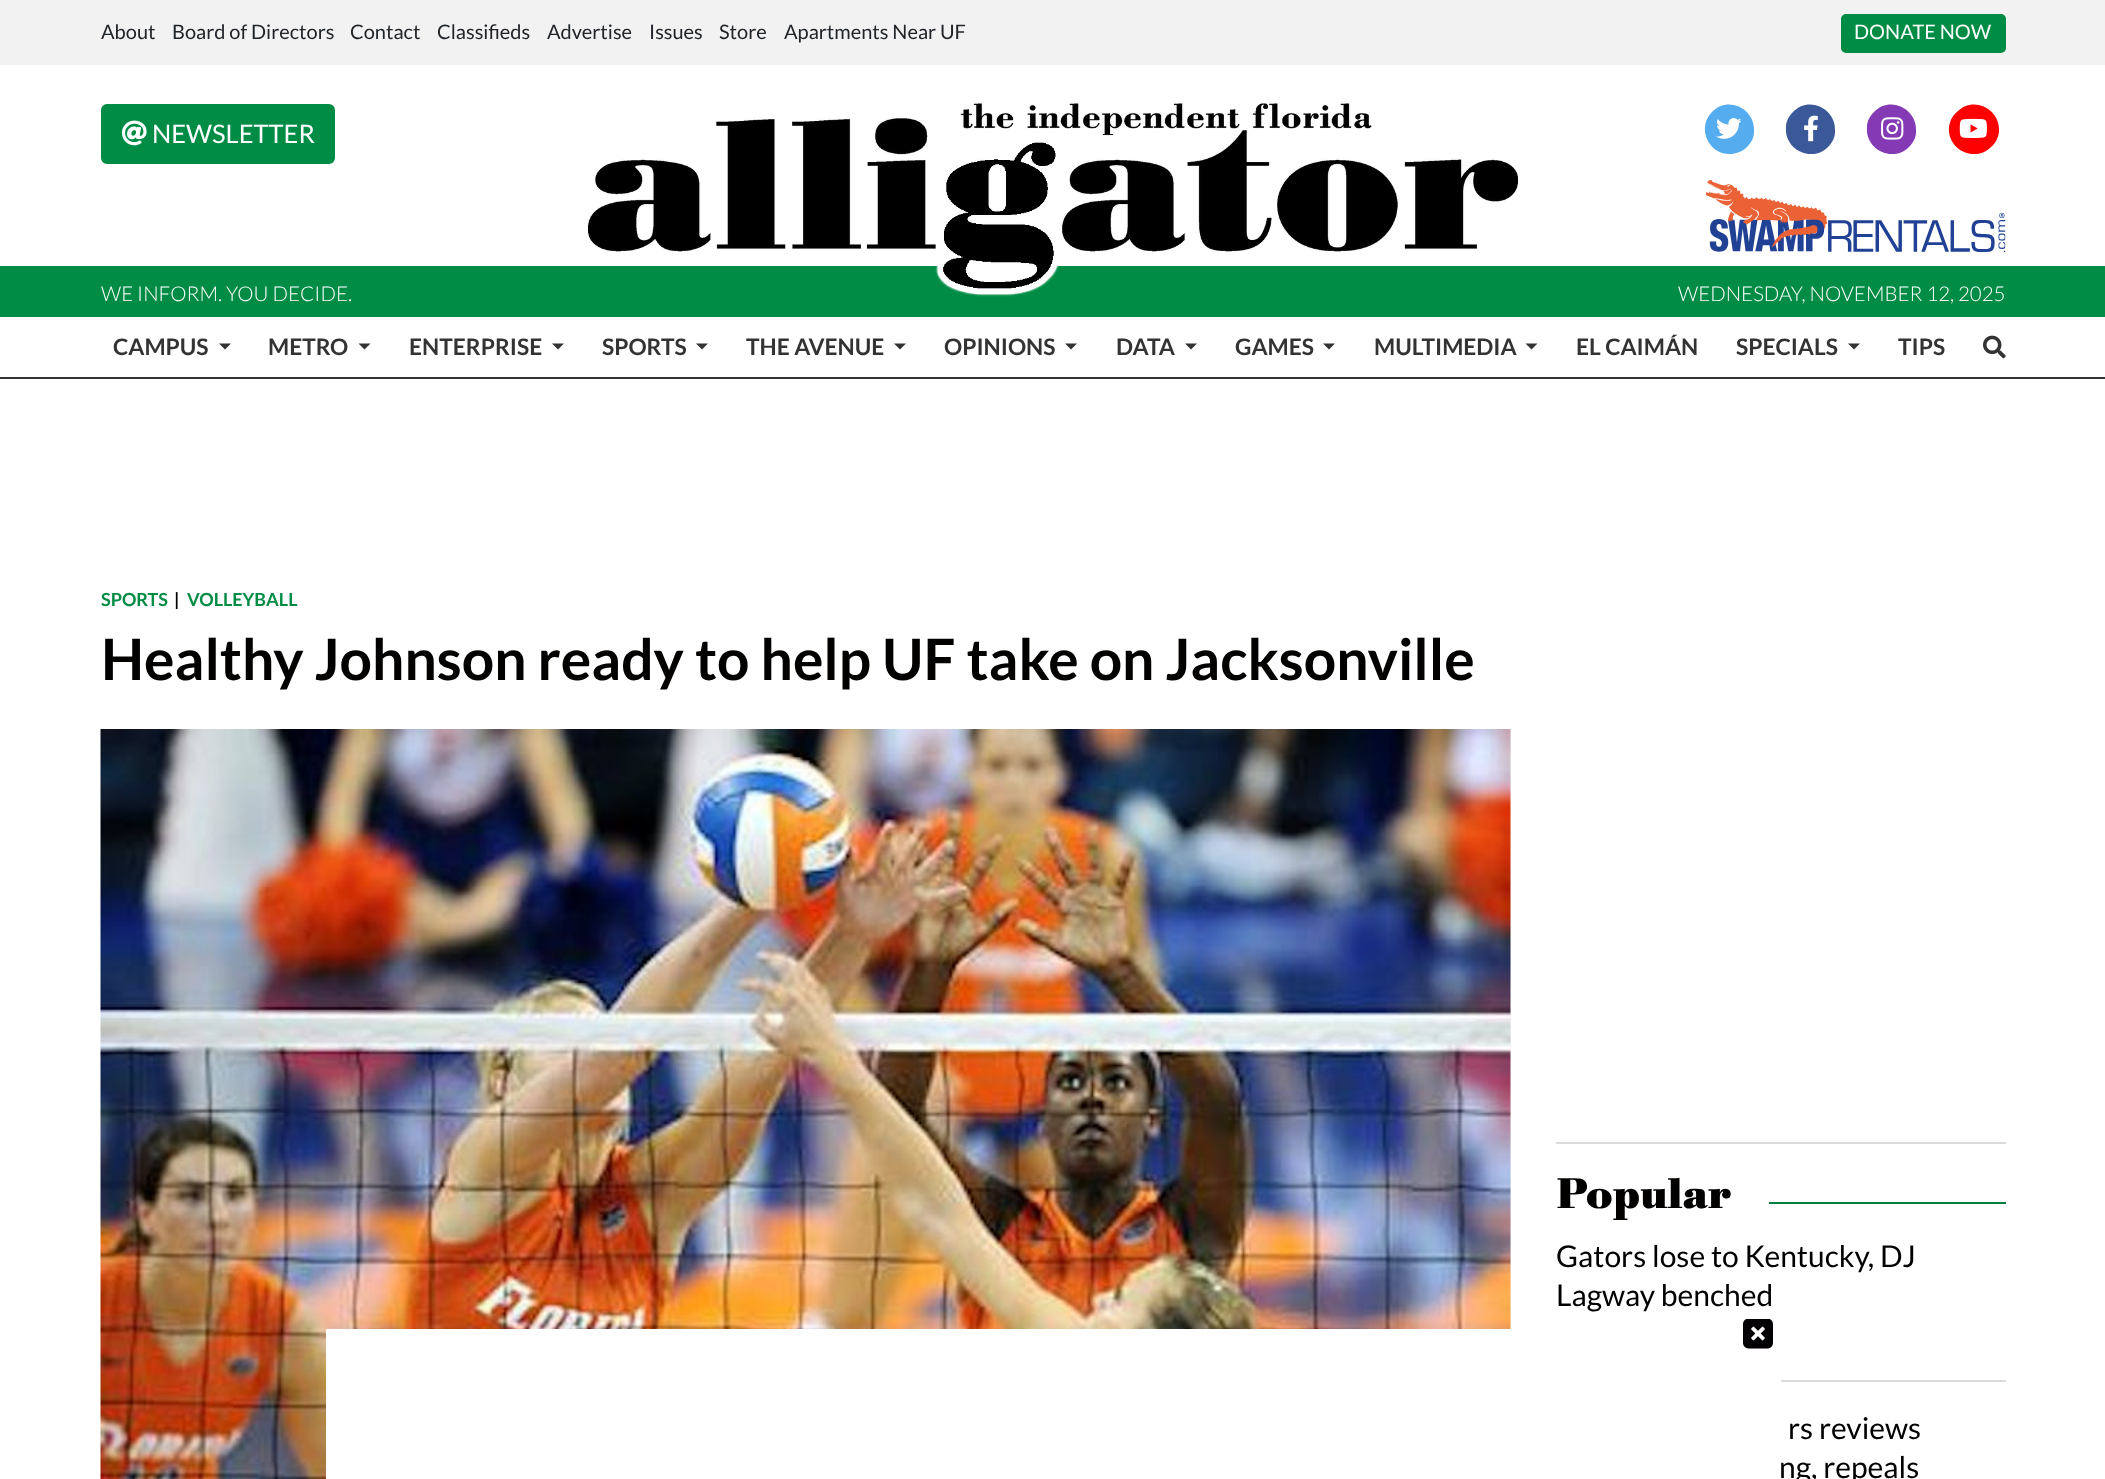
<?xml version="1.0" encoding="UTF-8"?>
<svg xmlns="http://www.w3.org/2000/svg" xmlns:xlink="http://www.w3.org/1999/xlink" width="2105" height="1479">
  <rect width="100%" height="100%" fill="#ffffff" />
  <rect width="2105" height="65" fill="#f2f2f2" />
  <rect x="1842" y="15" width="163" height="37" rx="4" fill="#008c44" stroke="#008c44" stroke-width="2" />
  <rect x="102" y="105" width="232" height="58" rx="5" fill="#008c44" stroke="#008c44" stroke-width="2" />
  <image x="121" y="120" width="26" height="26" xlink:href="image1.png" />
  <rect y="266" width="2105" height="51" fill="#008c44" />
  <image x="588" y="103" width="930" height="194" xlink:href="image2.png" />
  <path d="M 1712 112 c 16 -17 44 -3 42 20 c 0 6 -3 11 -7 15 c -4 4 -9 6 -15 7 c -23 2 -36 -26 -20 -42 z" fill="#55acee" />
  <image x="1716" y="118" width="26" height="21" xlink:href="image3.png" />
  <path d="M 1793 112 c 16 -17 44 -3 42 20 c 0 6 -3 11 -7 15 c -16 16 -44 3 -42 -20 c 0 -6 3 -11 7 -15 z" fill="#3b5998" />
  <image x="1804" y="115" width="14" height="27" xlink:href="image4.png" />
  <path d="M 1874 112 c 16 -17 44 -3 42 20 c 0 6 -3 11 -7 15 c -16 16 -44 3 -42 -20 c 0 -6 3 -11 7 -15 z" fill="#833ab4" />
  <image x="1881" y="117" width="23" height="23" xlink:href="image5.png" />
  <path d="M 1957 112 c 16 -17 44 -3 42 20 c -1 6 -3 11 -8 15 c -16 16 -44 3 -42 -20 c 1 -6 3 -11 8 -15 z" fill="#ff0000" />
  <image x="1959" y="118" width="28" height="20" xlink:href="image6.png" />
  <image x="1706" y="180" width="300" height="72" xlink:href="image7.png" />
  <rect y="377" width="2105" height="2" fill="#333333" />
  <path d="M 219 343.5 h 12 l -6 6 z" fill="#333333" />
  <path d="M 358.5 343.5 h 12 l -6 6 z" fill="#333333" />
  <path d="M 552 343.5 h 12 l -6 6 z" fill="#333333" />
  <path d="M 696 343.5 h 12 l -6 6 z" fill="#333333" />
  <path d="M 894 343.5 h 12 l -6 6 z" fill="#333333" />
  <path d="M 1065 343.5 h 12 l -6 6 z" fill="#333333" />
  <path d="M 1185 343.5 h 12 l -6 6 z" fill="#333333" />
  <path d="M 1323 343.5 h 12 l -6 6 z" fill="#333333" />
  <path d="M 1525.5 343.5 h 12 l -6 6 z" fill="#333333" />
  <path d="M 1848 343.5 h 12 l -6 6 z" fill="#333333" />
  <image x="1983" y="335" width="23" height="24" xlink:href="image8.png" />
  <rect x="1510" y="729" width="1" height="600" fill="#f2f2f2" />
  <image x="100" y="729" width="1411" height="750" xlink:href="image9.png" />
  <rect x="1556" y="1142" width="450" height="2" fill="#dadada" />
  <rect x="1769" y="1202" width="237" height="2" fill="#007e3d" />
  <rect x="1781" y="1380" width="225" height="2" fill="#dadada" />
  <text x="101" y="39" style="font-family: Lato; font-size: 20px; fill: #212529">About</text>
  <text x="172" y="39" style="font-family: Lato; font-size: 20px; fill: #212529">Board of Directors</text>
  <text x="350" y="39" style="font-family: Lato; font-size: 20px; fill: #212529">Contact</text>
  <text x="437" y="39" style="font-family: Lato; font-size: 20px; fill: #212529">Classifieds</text>
  <text x="547" y="39" style="font-family: Lato; font-size: 20px; fill: #212529">Advertise</text>
  <text x="649" y="39" style="font-family: Lato; font-size: 20px; fill: #212529">Issues</text>
  <text x="719" y="39" style="font-family: Lato; font-size: 20px; fill: #212529">Store</text>
  <text x="784" y="39" style="font-family: Lato; font-size: 20px; fill: #212529">Apartments Near UF</text>
  <text x="1854" y="39" style="font-family: Lato; font-size: 20px; fill: #ffffff">DONATE NOW</text>
  <text x="152" y="143" style="font-family: Lato; font-size: 25.5px; fill: #ffffff">NEWSLETTER</text>
  <text x="101" y="301" style="font-family: Lato; font-size: 20.4px; font-weight: 300; fill: #ffffff">WE INFORM. YOU DECIDE.</text>
  <text x="1678" y="301" style="font-family: Lato; font-size: 20.4px; font-weight: 300; fill: #ffffff">WEDNESDAY, NOVEMBER 12, 2025</text>
  <text x="113" y="355" style="font-family: Lato; font-size: 22.75px; font-weight: bold; fill: #333333">CAMPUS</text>
  <text x="268" y="355" style="font-family: Lato; font-size: 22.75px; font-weight: bold; fill: #333333">METRO</text>
  <text x="409" y="355" style="font-family: Lato; font-size: 22.75px; font-weight: bold; fill: #333333">ENTERPRISE</text>
  <text x="602" y="355" style="font-family: Lato; font-size: 22.75px; font-weight: bold; fill: #333333">SPORTS</text>
  <text x="746" y="355" style="font-family: Lato; font-size: 22.75px; font-weight: bold; fill: #333333">THE AVENUE</text>
  <text x="944" y="355" style="font-family: Lato; font-size: 22.75px; font-weight: bold; fill: #333333">OPINIONS</text>
  <text x="1116" y="355" style="font-family: Lato; font-size: 22.75px; font-weight: bold; fill: #333333">DATA</text>
  <text x="1235" y="355" style="font-family: Lato; font-size: 22.75px; font-weight: bold; fill: #333333">GAMES</text>
  <text x="1374" y="355" style="font-family: Lato; font-size: 22.75px; font-weight: bold; fill: #333333">MULTIMEDIA</text>
  <text x="1576" y="355" style="font-family: Lato; font-size: 22.75px; font-weight: bold; fill: #333333">EL CAIMÁN</text>
  <text x="1736" y="355" style="font-family: Lato; font-size: 22.75px; font-weight: bold; fill: #333333">SPECIALS</text>
  <text x="1898" y="355" style="font-family: Lato; font-size: 22.75px; font-weight: bold; fill: #333333">TIPS</text>
  <text x="101" y="606" style="font-family: Lato; font-size: 18px; font-weight: bold; fill: #008c44">SPORTS</text>
  <text x="174" y="606" style="font-family: Lato; font-size: 18px; font-weight: bold; fill: #020100">|</text>
  <text x="187" y="606" style="font-family: Lato; font-size: 18px; font-weight: bold; fill: #008c44">VOLLEYBALL</text>
  <text x="101" y="680" style="font-family: Lato; font-size: 57px; font-weight: bold; fill: #020100">Healthy Johnson ready to help UF take on Jacksonville</text>
  <text x="1556" y="1208" style="font-family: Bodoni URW; font-size: 44.5px; font-weight: bold; fill: #020100">Popular</text>
  <text x="1556" y="1267" style="font-family: Lato; font-size: 30px; fill: #020100">Gators lose to Kentucky, DJ</text>
  <text x="1556" y="1306" style="font-family: Lato; font-size: 30px; fill: #020100">Lagway benched</text>
  <text x="1788" y="1439" style="font-family: Lato; font-size: 30px; fill: #020100">rs reviews</text>
  <text x="1779" y="1478" style="font-family: Lato; font-size: 30px; fill: #020100">ng, repeals</text>
  <rect x="326" y="1329" width="1455" height="150" fill="#ffffff" />
  <image x="1743" y="1319" width="30" height="30" xlink:href="image10.png" />
</svg>
